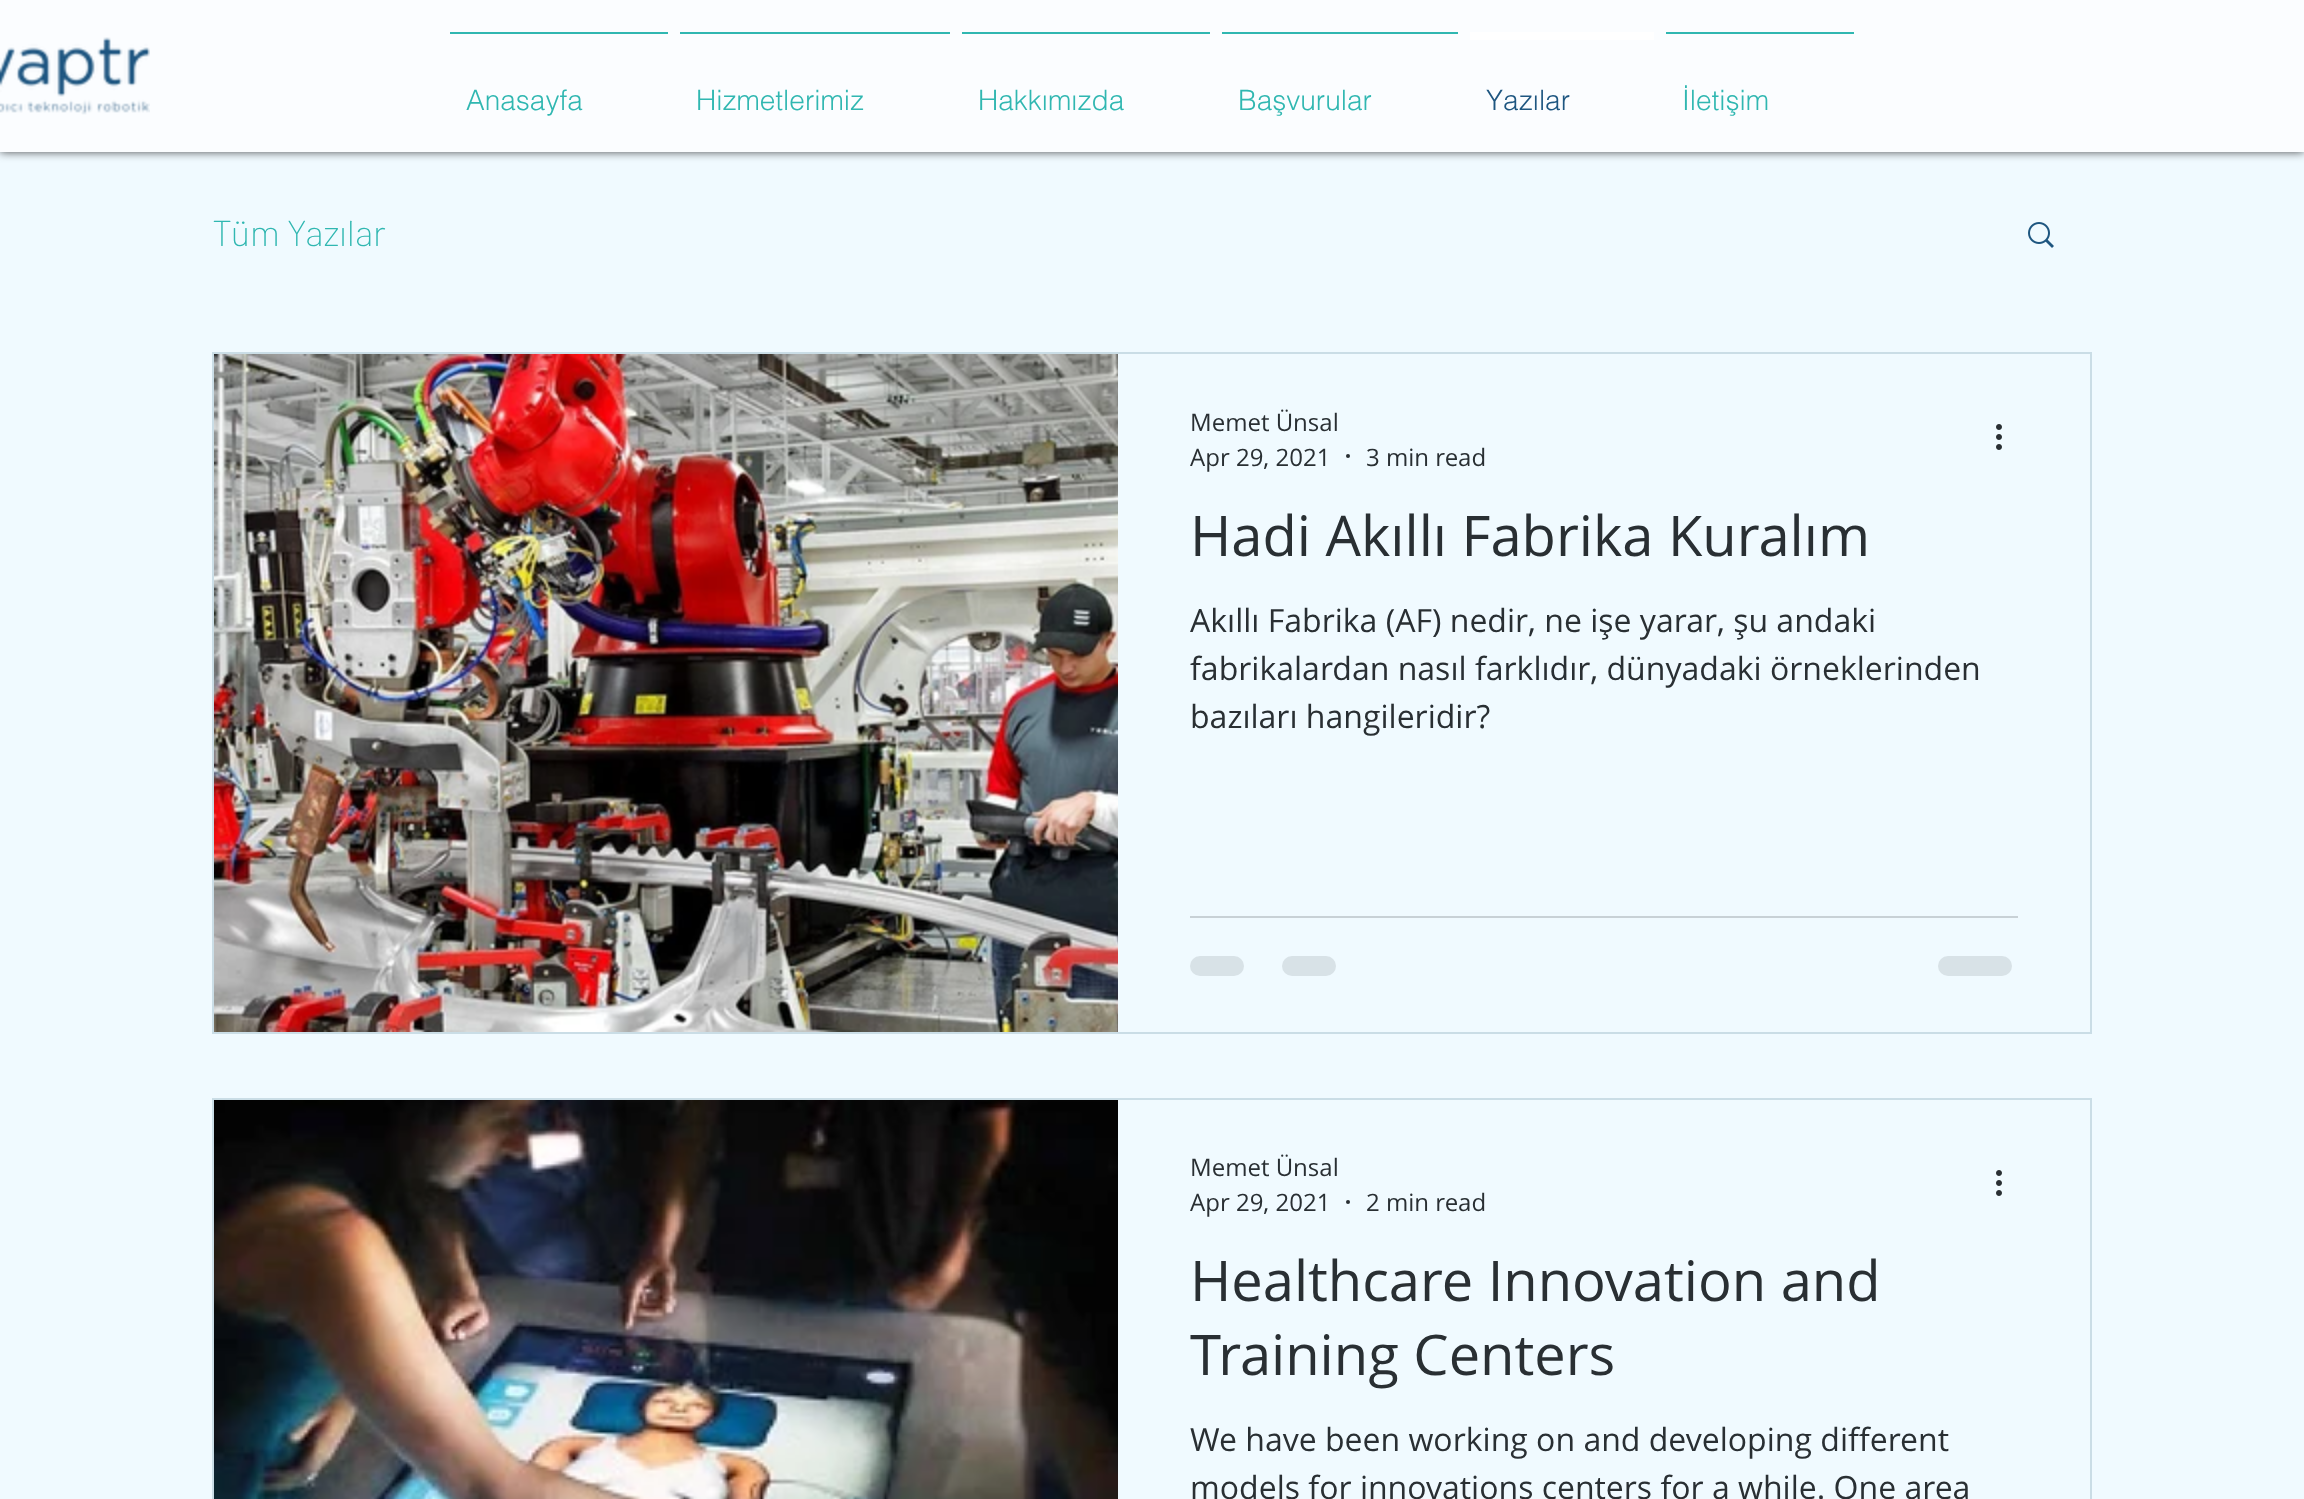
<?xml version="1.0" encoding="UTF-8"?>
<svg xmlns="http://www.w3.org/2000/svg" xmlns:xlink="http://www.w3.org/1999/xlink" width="2304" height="1499">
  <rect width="100%" height="100%" fill="#f0faff" />
  <rect width="2304" height="152" fill="#000000" fill-opacity="0.7" filter="blur(5px)" />
  <rect width="2304" height="152" fill="#fbfdff" />
  <image x="0" y="37" width="150" height="78" xlink:href="image1.png" />
  <rect x="450" y="32" width="218" height="2" fill="#30b7b1" />
  <rect x="680" y="32" width="270" height="2" fill="#30b7b1" />
  <rect x="962" y="32" width="248" height="2" fill="#30b7b1" />
  <rect x="1222" y="32" width="236" height="2" fill="#30b7b1" />
  <rect x="1470" y="32" width="184" height="8" fill="#ffffff" />
  <rect x="1666" y="32" width="188" height="2" fill="#30b7b1" />
  <image x="2028" y="222" width="26" height="26" xlink:href="image2.png" />
  <rect x="213" y="353" width="1878" height="680" fill="none" stroke="#cadde6" stroke-width="2" />
  <image x="214" y="354" width="904" height="678" xlink:href="image3.png" />
  <circle cx="1348" cy="456" r="2" fill="#292f33" />
  <image x="1996" y="424" width="6" height="26" xlink:href="image4.png" />
  <rect x="1190" y="916" width="828" height="2" fill="#c8d1d6" />
  <rect x="1190" y="956" width="54" height="20" rx="10" fill="#d8e2e7" />
  <rect x="1282" y="956" width="54" height="20" rx="10" fill="#d8e2e7" />
  <rect x="1938" y="956" width="74" height="20" rx="10" fill="#d8e2e7" />
  <rect x="213" y="1099" width="1878" height="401" fill="none" stroke="#cadde6" stroke-width="2" />
  <image x="214" y="1100" width="904" height="399" xlink:href="image5.png" />
  <circle cx="1348" cy="1202" r="2" fill="#292f33" />
  <image x="1996" y="1170" width="6" height="26" xlink:href="image4.png" />
  <text x="466" y="110" style="font-family: helvetica; font-size: 28px; font-weight: 300; fill: #30b7b1">Anasayfa</text>
  <text x="696" y="110" style="font-family: helvetica; font-size: 28px; font-weight: 300; fill: #30b7b1">Hizmetlerimiz</text>
  <text x="978" y="110" style="font-family: helvetica; font-size: 28px; font-weight: 300; fill: #30b7b1">Hakkımızda</text>
  <text x="1238" y="110" style="font-family: helvetica; font-size: 28px; font-weight: 300; fill: #30b7b1">Başvurular</text>
  <text x="1486" y="110" style="font-family: helvetica; font-size: 28px; font-weight: 300; fill: #1e5680">Yazılar</text>
  <text x="1682" y="110" style="font-family: helvetica; font-size: 28px; font-weight: 300; fill: #30b7b1">İletişim</text>
  <text x="212" y="246" style="font-family: Barlow; font-size: 36px; font-weight: 200; fill: #30b7b1">Tüm Yazılar</text>
  <text x="1190" y="431" style="font-family: Open Sans; font-size: 24px; fill: #292f33">Memet Ünsal</text>
  <text x="1190" y="466" style="font-family: Open Sans; font-size: 24px; fill: #292f33">Apr 29, 2021</text>
  <text x="1366" y="466" style="font-family: Open Sans; font-size: 24px; fill: #292f33">3 min read</text>
  <text x="1190" y="556" style="font-family: Open Sans; font-size: 56px; fill: #292f33">Hadi Akıllı Fabrika Kuralım</text>
  <text x="1190" y="632" style="font-family: Open Sans; font-size: 32px; fill: #292f33">Akıllı Fabrika (AF) nedir, ne işe yarar, şu andaki</text>
  <text x="1190" y="680" style="font-family: Open Sans; font-size: 32px; fill: #292f33">fabrikalardan nasıl farklıdır, dünyadaki örneklerinden</text>
  <text x="1190" y="728" style="font-family: Open Sans; font-size: 32px; fill: #292f33">bazıları hangileridir?</text>
  <text x="1190" y="1176" style="font-family: Open Sans; font-size: 24px; fill: #292f33">Memet Ünsal</text>
  <text x="1190" y="1211" style="font-family: Open Sans; font-size: 24px; fill: #292f33">Apr 29, 2021</text>
  <text x="1366" y="1211" style="font-family: Open Sans; font-size: 24px; fill: #292f33">2 min read</text>
  <text x="1190" y="1301" style="font-family: Open Sans; font-size: 56px; fill: #292f33">Healthcare Innovation and</text>
  <text x="1190" y="1375" style="font-family: Open Sans; font-size: 56px; fill: #292f33">Training Centers</text>
  <text x="1190" y="1451" style="font-family: Open Sans; font-size: 32px; fill: #292f33">We have been working on and developing different</text>
  <text x="1190" y="1499" style="font-family: Open Sans; font-size: 32px; fill: #292f33">models for innovations centers for a while. One area</text>
</svg>
